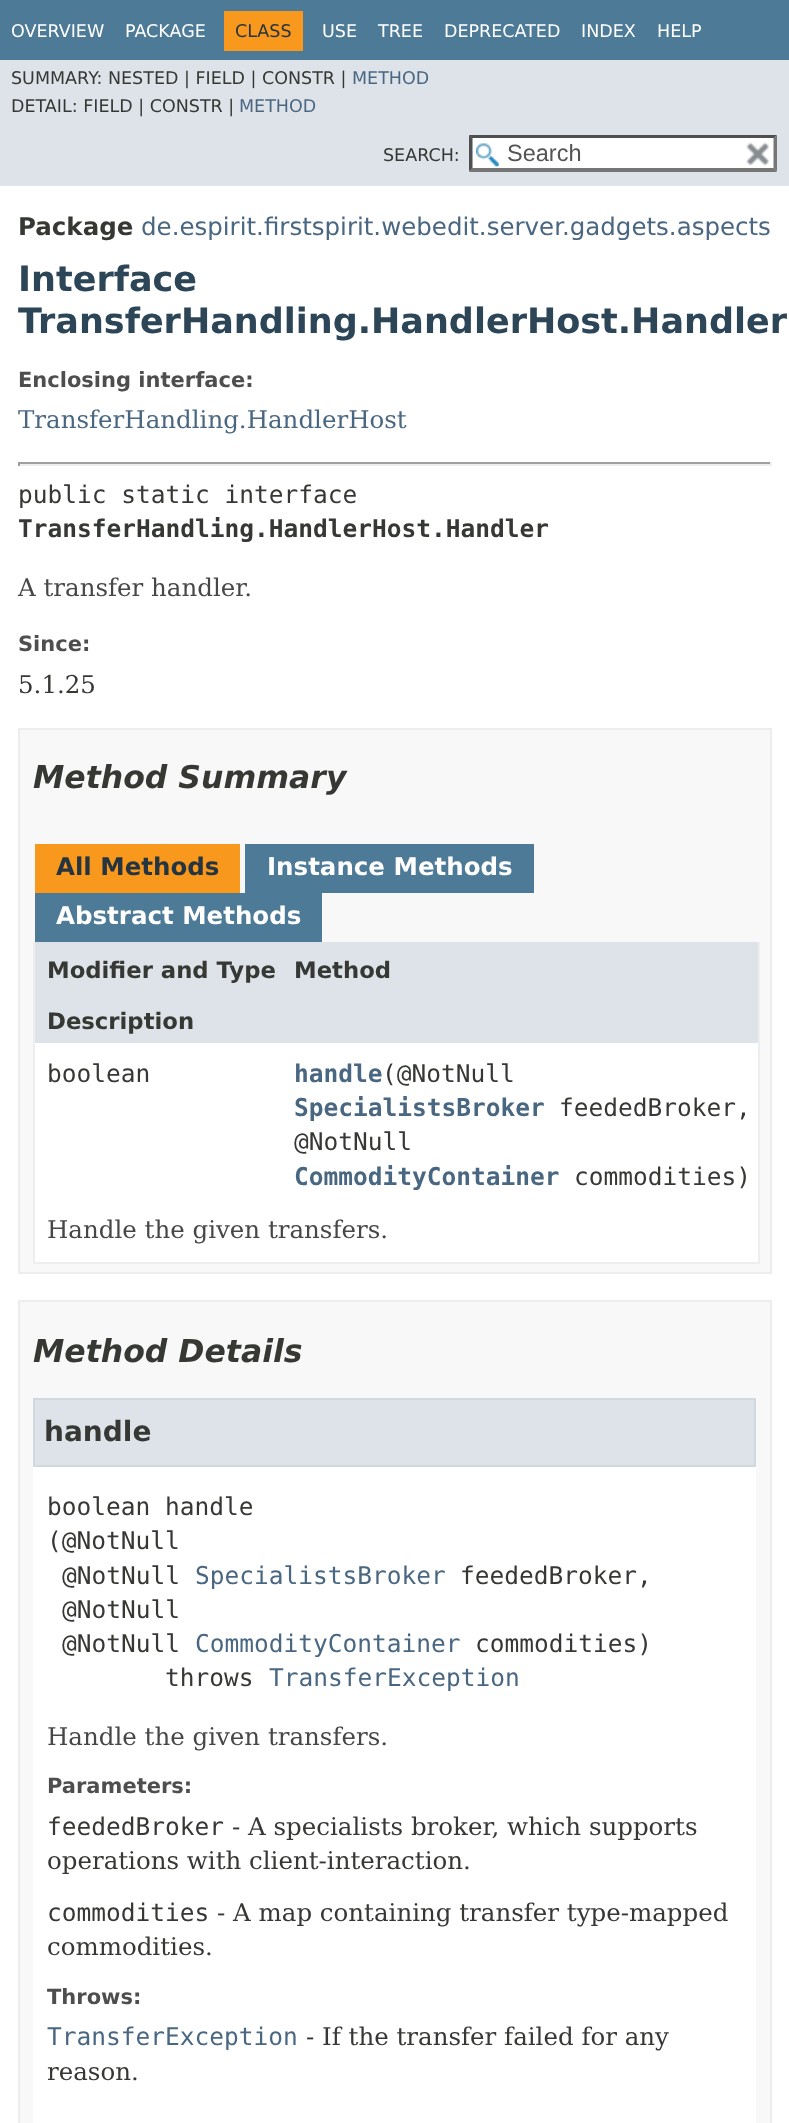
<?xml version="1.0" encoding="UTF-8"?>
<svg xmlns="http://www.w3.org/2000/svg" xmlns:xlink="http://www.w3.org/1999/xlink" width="789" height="2123">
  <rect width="100%" height="100%" fill="#ffffff" />
  <rect width="789" height="60" fill="#4d7a97" />
  <rect x="224" y="11" width="79" height="40" fill="#f8981d" />
  <rect y="60" width="789" height="126" fill="#dee3e9" />
  <rect x="469" y="135" width="308" height="37" fill="#ffffff" />
  <image x="476" y="143" width="23" height="24" xlink:href="image1.png" />
  <path d="M 469 135 h 308 l -3 3 h -302 z" fill="#4f4f4f" />
  <path d="M 777 135 v 36.5 l -3.5 -3.5 v -30 z" fill="#767676" />
  <path d="M 777 172 h -308 l 3 -4 h 302 z" fill="#767676" />
  <path d="M 469 171.5 v -36.5 l 3.5 3 v 30 z" fill="#4f4f4f" />
  <image x="746" y="142" width="23" height="24" xlink:href="image2.png" />
  <rect x="18" y="462" width="754" height="2" fill="#9f9f9f" />
  <rect x="770" y="462" width="2" height="4" fill="#eeeeee" />
  <rect x="18" y="464" width="754" height="2" fill="#eeeeee" />
  <rect x="18" y="462" width="2" height="4" fill="#9f9f9f" />
  <rect x="19" y="729" width="752" height="544" fill="#f8f8f8" stroke="#ededed" stroke-width="2" />
  <rect x="35" y="844" width="205" height="49" fill="#f8981d" />
  <rect x="245" y="844" width="289" height="49" fill="#4d7a97" />
  <rect x="35" y="893" width="287" height="49" fill="#4d7a97" />
  <rect x="758" y="942" width="2" height="322" fill="#eeeeee" />
  <rect x="33" y="1262" width="727" height="2" fill="#eeeeee" />
  <rect x="33" y="942" width="2" height="322" fill="#eeeeee" />
  <rect x="35" y="942" width="723" height="50" fill="#dee3e9" />
  <rect x="35" y="992" width="723" height="51" fill="#dee3e9" />
  <rect x="35" y="1043" width="723" height="158" fill="#ffffff" />
  <rect x="35" y="1201" width="723" height="61" fill="#ffffff" />
  <rect x="19" y="1301" width="752" height="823" fill="#f8f8f8" stroke="#ededed" stroke-width="2" />
  <rect x="33" y="1467" width="723" height="656" fill="#ffffff" />
  <rect x="34" y="1399" width="721" height="67" fill="#dee3e9" stroke="#d0d9e0" stroke-width="2" />
  <text x="11" y="37" style="font-family: DejaVu Sans; font-size: 17.5px; fill: #ffffff">OVERVIEW</text>
  <text x="125" y="37" style="font-family: DejaVu Sans; font-size: 17.5px; fill: #ffffff">PACKAGE</text>
  <text x="235" y="37" style="font-family: DejaVu Sans; font-size: 17.5px; fill: #253441">CLASS</text>
  <text x="322" y="37" style="font-family: DejaVu Sans; font-size: 17.5px; fill: #ffffff">USE</text>
  <text x="378" y="37" style="font-family: DejaVu Sans; font-size: 17.5px; fill: #ffffff">TREE</text>
  <text x="444" y="37" style="font-family: DejaVu Sans; font-size: 17.5px; fill: #ffffff">DEPRECATED</text>
  <text x="581" y="37" style="font-family: DejaVu Sans; font-size: 17.5px; fill: #ffffff">INDEX</text>
  <text x="657" y="37" style="font-family: DejaVu Sans; font-size: 17.5px; fill: #ffffff">HELP</text>
  <text x="11" y="84" style="font-family: DejaVu Sans; font-size: 17.5px; fill: #353833">SUMMARY: NESTED | FIELD | CONSTR |</text>
  <text x="352" y="84" style="font-family: DejaVu Sans; font-size: 17.5px; fill: #4a6782">METHOD</text>
  <text x="11" y="112" style="font-family: DejaVu Sans; font-size: 17.5px; fill: #353833">DETAIL: FIELD | CONSTR |</text>
  <text x="239" y="112" style="font-family: DejaVu Sans; font-size: 17.5px; fill: #4a6782">METHOD</text>
  <text x="383" y="161" style="font-family: DejaVu Sans; font-size: 17.5px; fill: #353833">SEARCH:</text>
  <text x="507" y="161" style="font-family: Liberation Sans; font-size: 23.5px; fill: #545454">Search</text>
  <text x="18" y="235" style="font-family: DejaVu Sans; font-size: 24.5px; font-weight: bold; fill: #353833">Package</text>
  <text x="141" y="235" style="font-family: DejaVu Sans; font-size: 24.5px; fill: #4a6782">de.espirit.firstspirit.webedit.server.gadgets.aspects</text>
  <text x="18" y="291" style="font-family: DejaVu Sans; font-size: 35px; font-weight: bold; fill: #2c4557">Interface</text>
  <text x="18" y="333" style="font-family: DejaVu Sans; font-size: 35px; font-weight: bold; fill: #2c4557">TransferHandling.HandlerHost.Handler</text>
  <text x="18" y="387" style="font-family: DejaVu Sans; font-size: 21px; font-weight: bold; fill: #4e4e4e">Enclosing interface:</text>
  <text x="18" y="428" style="font-family: DejaVu Serif; font-size: 24.5px; fill: #4a6782">TransferHandling.HandlerHost</text>
  <text x="18" y="503" style="font-family: DejaVu Sans Mono; font-size: 24.5px; fill: #353833">public static interface</text>
  <text x="18" y="537" style="font-family: DejaVu Sans Mono; font-size: 24.5px; font-weight: bold; fill: #353833">TransferHandling.HandlerHost.Handler</text>
  <text x="18" y="596" style="font-family: DejaVu Serif; font-size: 24.5px; fill: #474747">A transfer handler.</text>
  <text x="18" y="651" style="font-family: DejaVu Sans; font-size: 21px; font-weight: bold; fill: #4e4e4e">Since:</text>
  <text x="18" y="693" style="font-family: DejaVu Serif; font-size: 24.5px; fill: #353833">5.1.25</text>
  <text x="33" y="788" style="font-family: DejaVu Sans; font-size: 31.5px; font-weight: bold; font-style: italic; fill: #353833">Method Summary</text>
  <text x="56" y="875" style="font-family: DejaVu Sans; font-size: 24.5px; font-weight: bold; fill: #253441">All Methods</text>
  <text x="267" y="875" style="font-family: DejaVu Sans; font-size: 24.5px; font-weight: bold; fill: #ffffff">Instance Methods</text>
  <text x="56" y="924" style="font-family: DejaVu Sans; font-size: 24.5px; font-weight: bold; fill: #ffffff">Abstract Methods</text>
  <text x="47" y="978" style="font-family: DejaVu Sans; font-size: 22.75px; font-weight: bold; fill: #353833">Modifier and Type</text>
  <text x="294" y="978" style="font-family: DejaVu Sans; font-size: 22.75px; font-weight: bold; fill: #353833">Method</text>
  <text x="47" y="1029" style="font-family: DejaVu Sans; font-size: 22.75px; font-weight: bold; fill: #353833">Description</text>
  <text x="47" y="1082" style="font-family: DejaVu Sans Mono; font-size: 24.5px; fill: #353833">boolean</text>
  <text x="294" y="1082" style="font-family: DejaVu Sans Mono; font-size: 24.5px; font-weight: bold; fill: #4a6782">handle</text>
  <text x="382" y="1082" style="font-family: DejaVu Sans Mono; font-size: 24.5px; fill: #353833">(@NotNull</text>
  <text x="294" y="1116" style="font-family: DejaVu Sans Mono; font-size: 24.5px; font-weight: bold; fill: #4a6782">SpecialistsBroker</text>
  <text x="559" y="1116" style="font-family: DejaVu Sans Mono; font-size: 24.5px; fill: #353833">feededBroker,</text>
  <text x="294" y="1150" style="font-family: DejaVu Sans Mono; font-size: 24.5px; fill: #353833">@NotNull</text>
  <text x="294" y="1185" style="font-family: DejaVu Sans Mono; font-size: 24.5px; font-weight: bold; fill: #4a6782">CommodityContainer</text>
  <text x="574" y="1185" style="font-family: DejaVu Sans Mono; font-size: 24.5px; fill: #353833">commodities)</text>
  <text x="47" y="1238" style="font-family: DejaVu Serif; font-size: 24.5px; fill: #474747">Handle the given transfers.</text>
  <text x="33" y="1362" style="font-family: DejaVu Sans; font-size: 31.5px; font-weight: bold; font-style: italic; fill: #353833">Method Details</text>
  <text x="44" y="1441" style="font-family: DejaVu Sans; font-size: 28px; font-weight: bold; fill: #353833">handle</text>
  <text x="47" y="1515" style="font-family: DejaVu Sans Mono; font-size: 24.5px; fill: #353833">boolean handle</text>
  <text x="47" y="1549" style="font-family: DejaVu Sans Mono; font-size: 24.5px; fill: #353833">(@NotNull</text>
  <text x="62" y="1584" style="font-family: DejaVu Sans Mono; font-size: 24.5px; fill: #353833">@NotNull</text>
  <text x="195" y="1584" style="font-family: DejaVu Sans Mono; font-size: 24.5px; fill: #4a6782">SpecialistsBroker</text>
  <text x="460" y="1584" style="font-family: DejaVu Sans Mono; font-size: 24.5px; fill: #353833">feededBroker,</text>
  <text x="62" y="1618" style="font-family: DejaVu Sans Mono; font-size: 24.5px; fill: #353833">@NotNull</text>
  <text x="62" y="1652" style="font-family: DejaVu Sans Mono; font-size: 24.5px; fill: #353833">@NotNull</text>
  <text x="195" y="1652" style="font-family: DejaVu Sans Mono; font-size: 24.5px; fill: #4a6782">CommodityContainer</text>
  <text x="475" y="1652" style="font-family: DejaVu Sans Mono; font-size: 24.5px; fill: #353833">commodities)</text>
  <text x="165" y="1686" style="font-family: DejaVu Sans Mono; font-size: 24.5px; fill: #353833">throws</text>
  <text x="269" y="1686" style="font-family: DejaVu Sans Mono; font-size: 24.5px; fill: #4a6782">TransferException</text>
  <text x="47" y="1745" style="font-family: DejaVu Serif; font-size: 24.5px; fill: #474747">Handle the given transfers.</text>
  <text x="47" y="1793" style="font-family: DejaVu Sans; font-size: 21px; font-weight: bold; fill: #4e4e4e">Parameters:</text>
  <text x="47" y="1835" style="font-family: DejaVu Sans Mono; font-size: 24.5px; fill: #353833">feededBroker</text>
  <text x="232" y="1835" style="font-family: DejaVu Serif; font-size: 24.5px; fill: #353833">- A specialists broker, which supports</text>
  <text x="47" y="1869" style="font-family: DejaVu Serif; font-size: 24.5px; fill: #353833">operations with client-interaction.</text>
  <text x="47" y="1921" style="font-family: DejaVu Sans Mono; font-size: 24.5px; fill: #353833">commodities</text>
  <text x="217" y="1921" style="font-family: DejaVu Serif; font-size: 24.5px; fill: #353833">- A map containing transfer type-mapped</text>
  <text x="47" y="1955" style="font-family: DejaVu Serif; font-size: 24.5px; fill: #353833">commodities.</text>
  <text x="47" y="2004" style="font-family: DejaVu Sans; font-size: 21px; font-weight: bold; fill: #4e4e4e">Throws:</text>
  <text x="47" y="2045" style="font-family: DejaVu Sans Mono; font-size: 24.5px; fill: #4a6782">TransferException</text>
  <text x="306" y="2045" style="font-family: DejaVu Serif; font-size: 24.5px; fill: #353833">- If the transfer failed for any</text>
  <text x="47" y="2080" style="font-family: DejaVu Serif; font-size: 24.5px; fill: #353833">reason.</text>
</svg>
